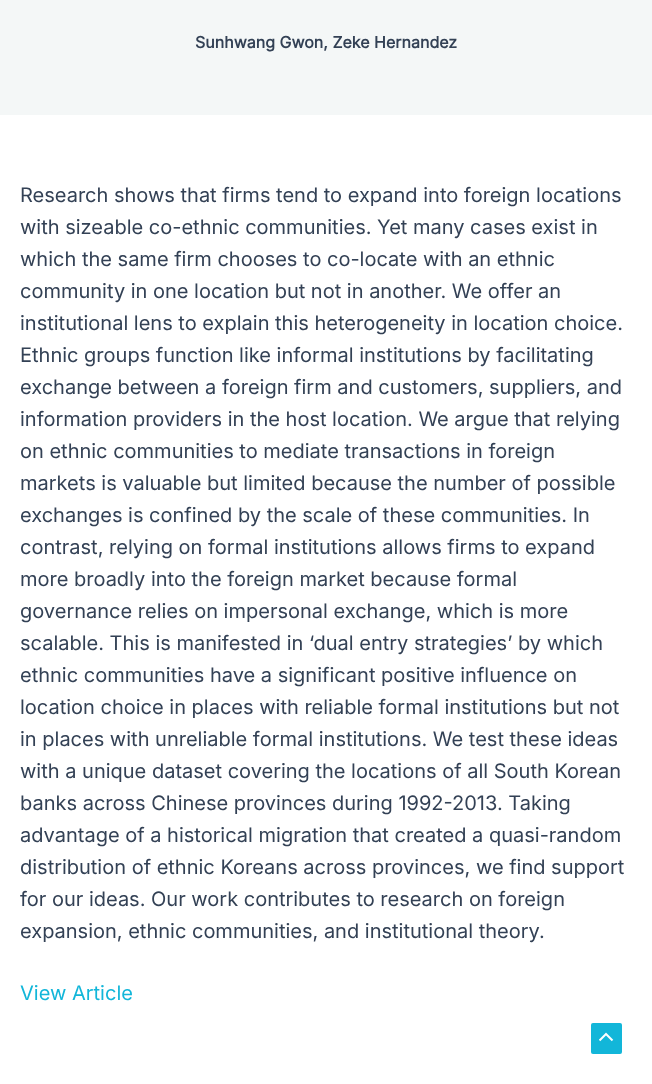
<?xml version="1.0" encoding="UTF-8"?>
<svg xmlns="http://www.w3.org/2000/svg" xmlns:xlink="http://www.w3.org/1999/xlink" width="652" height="1084">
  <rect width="100%" height="100%" fill="#ffffff" />
  <rect width="652" height="115" fill="#f4f7f7" />
  <rect x="591" y="1023" width="31" height="31" rx="2" fill="#12b6d9" />
  <image x="599" y="1032" width="15" height="10" xlink:href="image1.png" />
  <text x="195" y="48" style="font-family: Inter; font-size: 16px; font-weight: bold; fill: #334155">Sunhwang Gwon, Zeke Hernandez</text>
  <text x="20" y="202" style="font-family: Inter; font-size: 20px; fill: #334155">Research shows that firms tend to expand into foreign locations</text>
  <text x="20" y="234" style="font-family: Inter; font-size: 20px; fill: #334155">with sizeable co-ethnic communities. Yet many cases exist in</text>
  <text x="20" y="266" style="font-family: Inter; font-size: 20px; fill: #334155">which the same firm chooses to co-locate with an ethnic</text>
  <text x="20" y="298" style="font-family: Inter; font-size: 20px; fill: #334155">community in one location but not in another. We offer an</text>
  <text x="20" y="330" style="font-family: Inter; font-size: 20px; fill: #334155">institutional lens to explain this heterogeneity in location choice.</text>
  <text x="20" y="362" style="font-family: Inter; font-size: 20px; fill: #334155">Ethnic groups function like informal institutions by facilitating</text>
  <text x="20" y="394" style="font-family: Inter; font-size: 20px; fill: #334155">exchange between a foreign firm and customers, suppliers, and</text>
  <text x="20" y="426" style="font-family: Inter; font-size: 20px; fill: #334155">information providers in the host location. We argue that relying</text>
  <text x="20" y="458" style="font-family: Inter; font-size: 20px; fill: #334155">on ethnic communities to mediate transactions in foreign</text>
  <text x="20" y="490" style="font-family: Inter; font-size: 20px; fill: #334155">markets is valuable but limited because the number of possible</text>
  <text x="20" y="522" style="font-family: Inter; font-size: 20px; fill: #334155">exchanges is confined by the scale of these communities. In</text>
  <text x="20" y="554" style="font-family: Inter; font-size: 20px; fill: #334155">contrast, relying on formal institutions allows firms to expand</text>
  <text x="20" y="586" style="font-family: Inter; font-size: 20px; fill: #334155">more broadly into the foreign market because formal</text>
  <text x="20" y="618" style="font-family: Inter; font-size: 20px; fill: #334155">governance relies on impersonal exchange, which is more</text>
  <text x="20" y="650" style="font-family: Inter; font-size: 20px; fill: #334155">scalable. This is manifested in ‘dual entry strategies’ by which</text>
  <text x="20" y="682" style="font-family: Inter; font-size: 20px; fill: #334155">ethnic communities have a significant positive influence on</text>
  <text x="20" y="714" style="font-family: Inter; font-size: 20px; fill: #334155">location choice in places with reliable formal institutions but not</text>
  <text x="20" y="746" style="font-family: Inter; font-size: 20px; fill: #334155">in places with unreliable formal institutions. We test these ideas</text>
  <text x="20" y="778" style="font-family: Inter; font-size: 20px; fill: #334155">with a unique dataset covering the locations of all South Korean</text>
  <text x="20" y="810" style="font-family: Inter; font-size: 20px; fill: #334155">banks across Chinese provinces during 1992-2013. Taking</text>
  <text x="20" y="842" style="font-family: Inter; font-size: 20px; fill: #334155">advantage of a historical migration that created a quasi-random</text>
  <text x="20" y="874" style="font-family: Inter; font-size: 20px; fill: #334155">distribution of ethnic Koreans across provinces, we find support</text>
  <text x="20" y="906" style="font-family: Inter; font-size: 20px; fill: #334155">for our ideas. Our work contributes to research on foreign</text>
  <text x="20" y="938" style="font-family: Inter; font-size: 20px; fill: #334155">expansion, ethnic communities, and institutional theory.</text>
  <text x="20" y="1000" style="font-family: Inter; font-size: 20px; fill: #12b6d9">View Article</text>
</svg>
